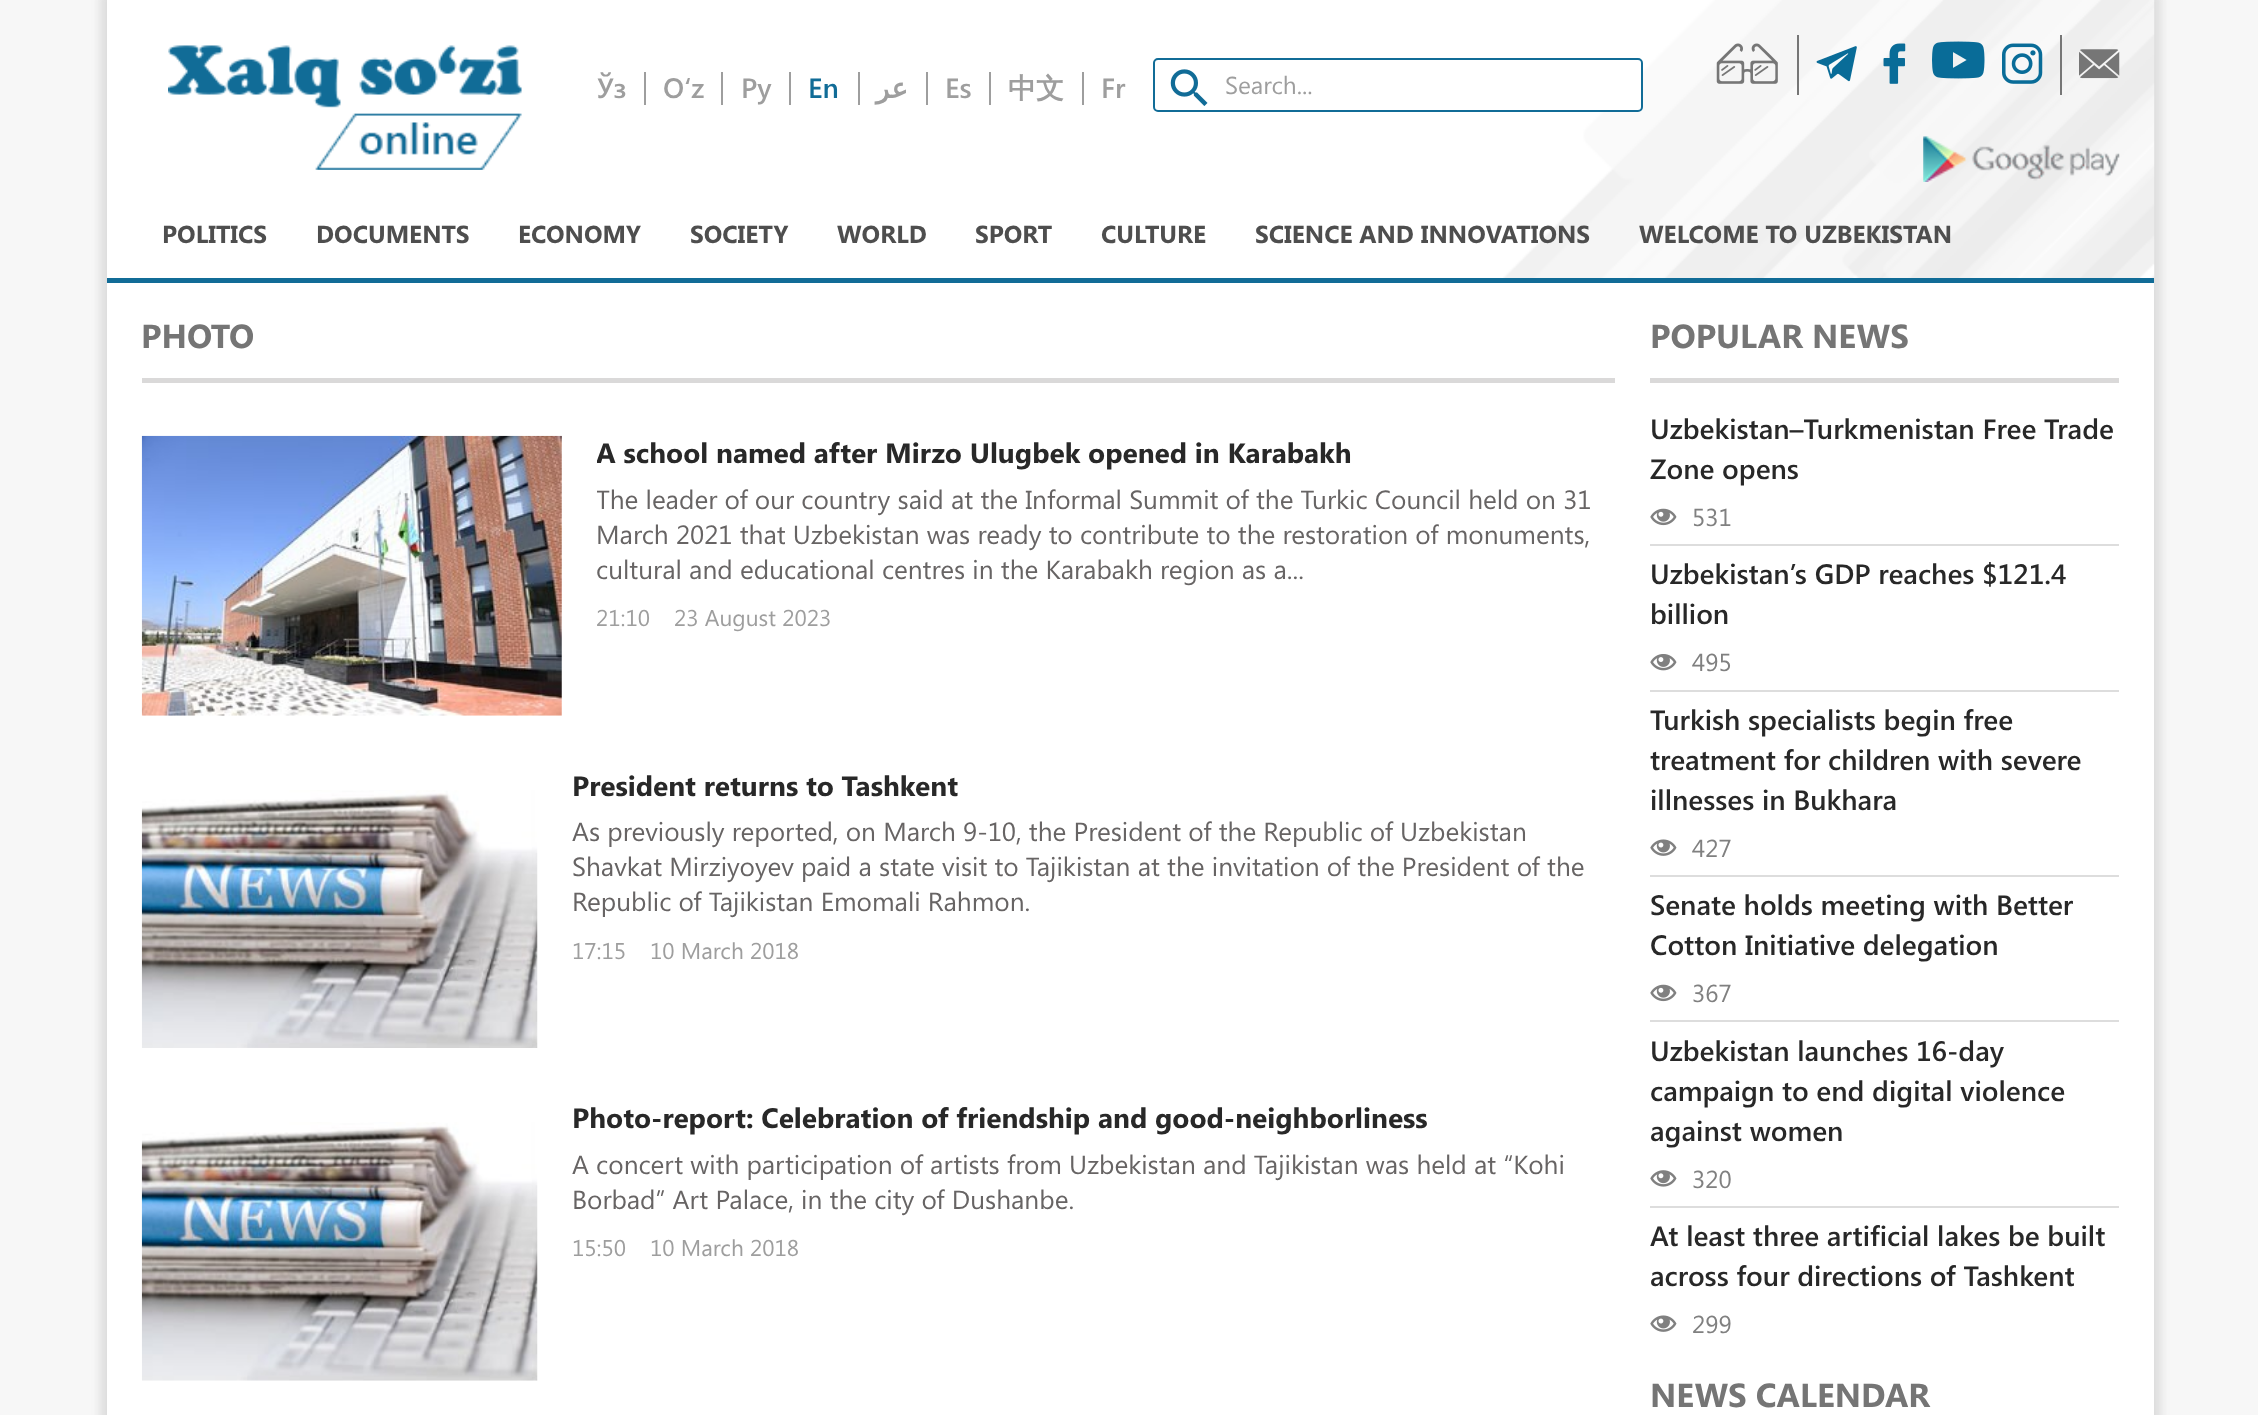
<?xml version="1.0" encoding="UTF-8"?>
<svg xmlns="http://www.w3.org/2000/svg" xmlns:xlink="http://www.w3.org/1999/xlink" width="2258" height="1415">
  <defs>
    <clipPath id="clip1"><rect x="597" y="436" width="1018" height="280" /></clipPath>
  </defs>
  <rect width="100%" height="100%" fill="#f7f7f7" />
  <rect x="100" y="-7" width="2061" height="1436" fill="#d1d1d1" fill-opacity="0.67" filter="blur(4.5px)" />
  <rect x="107" width="2047" height="1415" fill="#ffffff" />
  <image x="1503" y="0" width="652" height="279" xlink:href="image1.png" />
  <rect x="107" y="278" width="2047" height="5" fill="#116c97" />
  <image x="168" y="45" width="354" height="125" xlink:href="image2.png" />
  <rect x="644" y="72" width="2" height="33" fill="#9e9e9e" />
  <rect x="721" y="72" width="2" height="33" fill="#9e9e9e" />
  <rect x="789" y="72" width="2" height="33" fill="#9e9e9e" />
  <rect x="858" y="72" width="2" height="33" fill="#9e9e9e" />
  <rect x="926" y="72" width="2" height="33" fill="#9e9e9e" />
  <rect x="989" y="72" width="2" height="33" fill="#9e9e9e" />
  <rect x="1082" y="72" width="2" height="33" fill="#9e9e9e" />
  <rect x="1154" y="59" width="488" height="52" rx="4" fill="#ffffff" stroke="#116c97" stroke-width="2" />
  <image x="1170" y="69" width="38" height="37" xlink:href="image3.png" />
  <rect x="1797" y="35" width="2" height="60" fill="#767676" />
  <image x="1716" y="43" width="62" height="41" xlink:href="image4.png" />
  <image x="1816" y="46" width="41" height="36" xlink:href="image5.png" />
  <image x="1883" y="43" width="23" height="41" xlink:href="image6.png" />
  <image x="1932" y="41" width="53" height="38" xlink:href="image7.png" />
  <image x="2002" y="43" width="41" height="41" xlink:href="image8.png" />
  <rect x="2060" y="35" width="2" height="60" fill="#767676" />
  <image x="2079" y="49" width="41" height="30" xlink:href="image9.png" />
  <image x="1923" y="136" width="197" height="46" xlink:href="image10.png" />
  <rect x="142" y="378" width="1473" height="5" fill="#dad9d9" />
  <image x="141" y="435" width="421" height="281" xlink:href="image11.png" />
  <image x="141" y="790" width="397" height="258" xlink:href="image12.png" />
  <image x="141" y="1122" width="397" height="259" xlink:href="image13.png" />
  <rect x="1650" y="378" width="469" height="5" fill="#dad9d9" />
  <rect x="1650" y="544" width="469" height="2" fill="#dddddd" />
  <image x="1650" y="508" width="27" height="18" xlink:href="image14.png" />
  <rect x="1650" y="690" width="469" height="2" fill="#dddddd" />
  <image x="1650" y="654" width="27" height="17" xlink:href="image15.png" />
  <rect x="1650" y="875" width="469" height="2" fill="#dddddd" />
  <image x="1650" y="839" width="27" height="17" xlink:href="image16.png" />
  <rect x="1650" y="1020" width="469" height="2" fill="#dddddd" />
  <image x="1650" y="984" width="27" height="18" xlink:href="image14.png" />
  <rect x="1650" y="1206" width="469" height="2" fill="#dddddd" />
  <image x="1650" y="1170" width="27" height="17" xlink:href="image17.png" />
  <image x="1650" y="1315" width="27" height="17" xlink:href="image16.png" />
  <text x="597" y="98" style="font-family: Segoe UI; font-size: 28px; font-weight: 600; fill: #9e9e9e">Ўз</text>
  <text x="663" y="98" style="font-family: Segoe UI; font-size: 28px; font-weight: 600; fill: #9e9e9e">O‘z</text>
  <text x="741" y="98" style="font-family: Segoe UI; font-size: 28px; font-weight: 600; fill: #9e9e9e">Ру</text>
  <text x="808" y="98" style="font-family: Segoe UI; font-size: 28px; font-weight: 600; fill: #116c97">En</text>
  <text x="908" y="98" style="font-family: DejaVu Sans; font-size: 28px; font-weight: bold; direction: rtl; fill: #9e9e9e">عر</text>
  <text x="945" y="98" style="font-family: Segoe UI; font-size: 28px; font-weight: 600; fill: #9e9e9e">Es</text>
  <text x="1008" y="98" style="font-family: WenQuanYi Zen Hei; font-size: 28px; font-weight: bold; fill: #9e9e9e">中文</text>
  <text x="1101" y="98" style="font-family: Segoe UI; font-size: 28px; font-weight: 600; fill: #9e9e9e">Fr</text>
  <text x="1225" y="94" style="font-family: Segoe UI; font-size: 24.5px; fill: #9e9e9e">Search...</text>
  <text x="162" y="243" style="font-family: Segoe UI; font-size: 24.5px; font-weight: bold; fill: #4e4e4e">POLITICS</text>
  <text x="316" y="243" style="font-family: Segoe UI; font-size: 24.5px; font-weight: bold; fill: #4e4e4e">DOCUMENTS</text>
  <text x="518" y="243" style="font-family: Segoe UI; font-size: 24.5px; font-weight: bold; fill: #4e4e4e">ECONOMY</text>
  <text x="690" y="243" style="font-family: Segoe UI; font-size: 24.5px; font-weight: bold; fill: #4e4e4e">SOCIETY</text>
  <text x="837" y="243" style="font-family: Segoe UI; font-size: 24.5px; font-weight: bold; fill: #4e4e4e">WORLD</text>
  <text x="975" y="243" style="font-family: Segoe UI; font-size: 24.5px; font-weight: bold; fill: #4e4e4e">SPORT</text>
  <text x="1101" y="243" style="font-family: Segoe UI; font-size: 24.5px; font-weight: bold; fill: #4e4e4e">CULTURE</text>
  <text x="1255" y="243" style="font-family: Segoe UI; font-size: 24.5px; font-weight: bold; fill: #4e4e4e">SCIENCE AND INNOVATIONS</text>
  <text x="1639" y="243" style="font-family: Segoe UI; font-size: 24.5px; font-weight: bold; fill: #4e4e4e">WELCOME TO UZBEKISTAN</text>
  <text x="141" y="348" style="font-family: Segoe UI; font-size: 33.25px; font-weight: bold; fill: #757575">PHOTO</text>
  <g clip-path="url(#clip1)">
    <text x="596" y="463" style="font-family: Segoe UI; font-size: 28px; font-weight: bold; fill: #282828">A school named after Mirzo Ulugbek opened in Karabakh</text>
    <text x="596" y="509" style="font-family: Segoe UI; font-size: 26.25px; fill: #676464">The leader of our country said at the Informal Summit of the Turkic Council held on 31</text>
  </g>
  <text x="596" y="544" style="font-family: Segoe UI; font-size: 26.25px; fill: #676464">March 2021 that Uzbekistan was ready to contribute to the restoration of monuments,</text>
  <text x="596" y="579" style="font-family: Segoe UI; font-size: 26.25px; fill: #676464">cultural and educational centres in the Karabakh region as a...</text>
  <text x="596" y="626" style="font-family: Segoe UI; font-size: 22.75px; fill: #9e9e9e">21:10</text>
  <text x="674" y="626" style="font-family: Segoe UI; font-size: 22.75px; fill: #9e9e9e">23 August 2023</text>
  <text x="572" y="796" style="font-family: Segoe UI; font-size: 28px; font-weight: bold; fill: #282828">President returns to Tashkent</text>
  <text x="572" y="841" style="font-family: Segoe UI; font-size: 26.25px; fill: #676464">As previously reported, on March 9-10, the President of the Republic of Uzbekistan</text>
  <text x="572" y="876" style="font-family: Segoe UI; font-size: 26.25px; fill: #676464">Shavkat Mirziyoyev paid a state visit to Tajikistan at the invitation of the President of the</text>
  <text x="572" y="911" style="font-family: Segoe UI; font-size: 26.25px; fill: #676464">Republic of Tajikistan Emomali Rahmon.</text>
  <text x="572" y="959" style="font-family: Segoe UI; font-size: 22.75px; fill: #9e9e9e">17:15</text>
  <text x="650" y="959" style="font-family: Segoe UI; font-size: 22.75px; fill: #9e9e9e">10 March 2018</text>
  <text x="572" y="1128" style="font-family: Segoe UI; font-size: 28px; font-weight: bold; fill: #282828">Photo-report: Celebration of friendship and good-neighborliness</text>
  <text x="572" y="1174" style="font-family: Segoe UI; font-size: 26.25px; fill: #676464">A concert with participation of artists from Uzbekistan and Tajikistan was held at “Kohi</text>
  <text x="572" y="1209" style="font-family: Segoe UI; font-size: 26.25px; fill: #676464">Borbad” Art Palace, in the city of Dushanbe.</text>
  <text x="572" y="1256" style="font-family: Segoe UI; font-size: 22.75px; fill: #9e9e9e">15:50</text>
  <text x="650" y="1256" style="font-family: Segoe UI; font-size: 22.75px; fill: #9e9e9e">10 March 2018</text>
  <text x="1650" y="348" style="font-family: Segoe UI; font-size: 33.25px; font-weight: bold; fill: #757575">POPULAR NEWS</text>
  <text x="1650" y="439" style="font-family: Segoe UI; font-size: 28px; font-weight: 600; fill: #282828">Uzbekistan–Turkmenistan Free Trade</text>
  <text x="1650" y="479" style="font-family: Segoe UI; font-size: 28px; font-weight: 600; fill: #282828">Zone opens</text>
  <text x="1692" y="526" style="font-family: Segoe UI; font-size: 24.5px; fill: #808080">531</text>
  <text x="1650" y="584" style="font-family: Segoe UI; font-size: 28px; font-weight: 600; fill: #282828">Uzbekistan’s GDP reaches $121.4</text>
  <text x="1650" y="624" style="font-family: Segoe UI; font-size: 28px; font-weight: 600; fill: #282828">billion</text>
  <text x="1692" y="671" style="font-family: Segoe UI; font-size: 24.5px; fill: #808080">495</text>
  <text x="1650" y="730" style="font-family: Segoe UI; font-size: 28px; font-weight: 600; fill: #282828">Turkish specialists begin free</text>
  <text x="1650" y="770" style="font-family: Segoe UI; font-size: 28px; font-weight: 600; fill: #282828">treatment for children with severe</text>
  <text x="1650" y="810" style="font-family: Segoe UI; font-size: 28px; font-weight: 600; fill: #282828">illnesses in Bukhara</text>
  <text x="1692" y="857" style="font-family: Segoe UI; font-size: 24.5px; fill: #808080">427</text>
  <text x="1650" y="915" style="font-family: Segoe UI; font-size: 28px; font-weight: 600; fill: #282828">Senate holds meeting with Better</text>
  <text x="1650" y="955" style="font-family: Segoe UI; font-size: 28px; font-weight: 600; fill: #282828">Cotton Initiative delegation</text>
  <text x="1692" y="1002" style="font-family: Segoe UI; font-size: 24.5px; fill: #808080">367</text>
  <text x="1650" y="1061" style="font-family: Segoe UI; font-size: 28px; font-weight: 600; fill: #282828">Uzbekistan launches 16-day</text>
  <text x="1650" y="1101" style="font-family: Segoe UI; font-size: 28px; font-weight: 600; fill: #282828">campaign to end digital violence</text>
  <text x="1650" y="1141" style="font-family: Segoe UI; font-size: 28px; font-weight: 600; fill: #282828">against women</text>
  <text x="1692" y="1188" style="font-family: Segoe UI; font-size: 24.5px; fill: #808080">320</text>
  <text x="1650" y="1246" style="font-family: Segoe UI; font-size: 28px; font-weight: 600; fill: #282828">At least three artificial lakes be built</text>
  <text x="1650" y="1286" style="font-family: Segoe UI; font-size: 28px; font-weight: 600; fill: #282828">across four directions of Tashkent</text>
  <text x="1692" y="1333" style="font-family: Segoe UI; font-size: 24.5px; fill: #808080">299</text>
  <text x="1650" y="1407" style="font-family: Segoe UI; font-size: 33.25px; font-weight: bold; fill: #757575">NEWS CALENDAR</text>
</svg>
